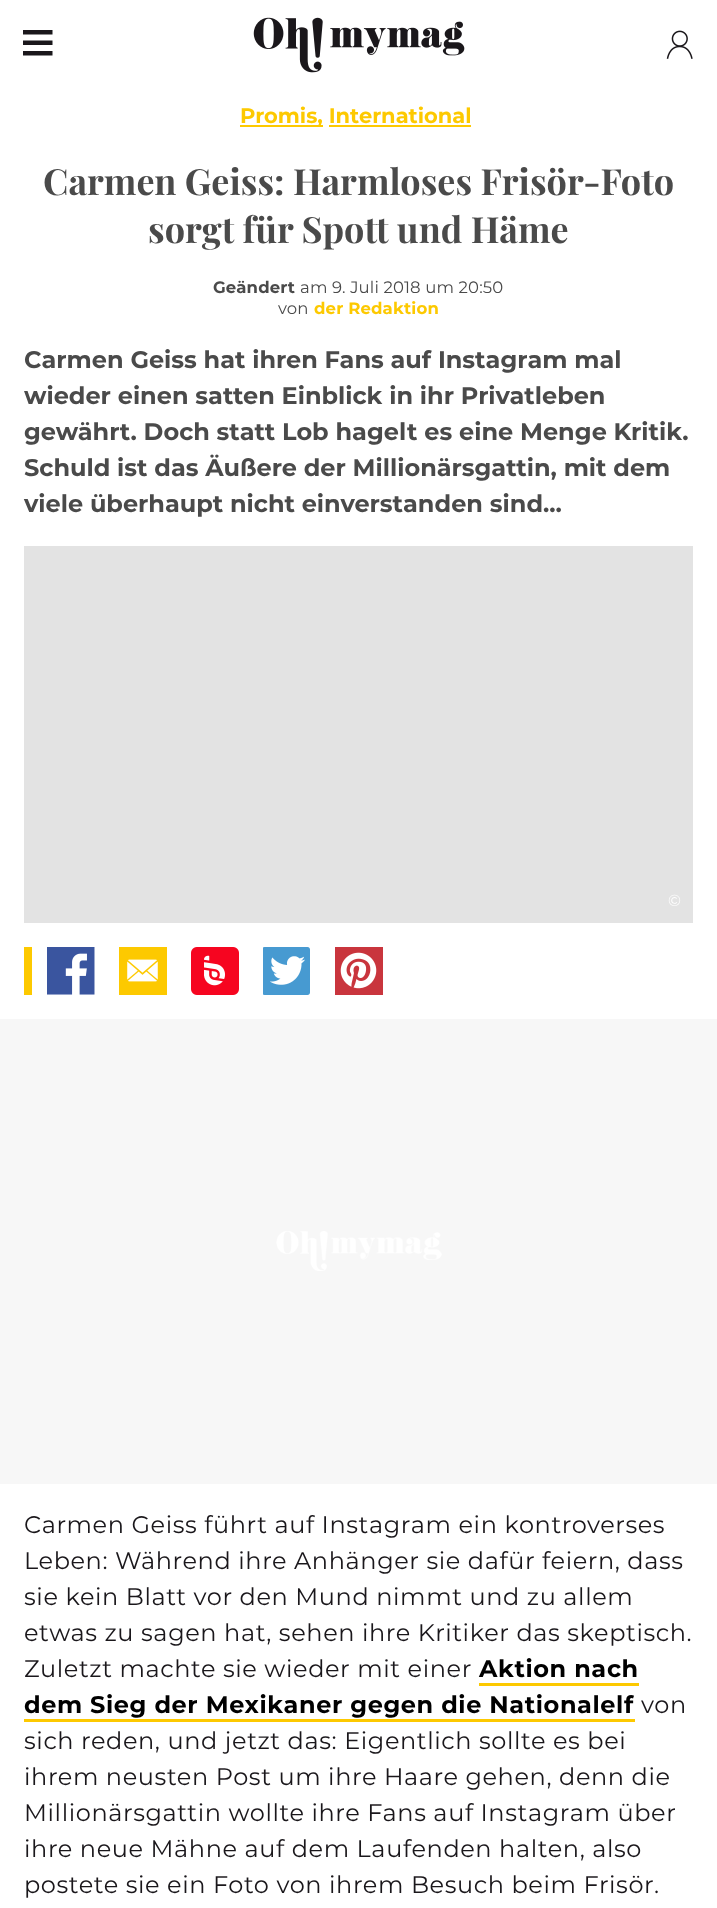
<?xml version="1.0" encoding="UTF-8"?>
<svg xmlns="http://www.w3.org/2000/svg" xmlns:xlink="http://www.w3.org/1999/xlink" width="717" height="1908">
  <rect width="100%" height="100%" fill="#ffffff" />
  <image x="23" y="30" width="30" height="26" xlink:href="image1.png" />
  <image x="253" y="17" width="212" height="56" xlink:href="image2.png" />
  <image x="666" y="30" width="27" height="29" xlink:href="image3.png" />
  <rect x="240" y="125" width="83" height="2" fill="#fdc900" />
  <rect x="329" y="125" width="142" height="2" fill="#fdc900" />
  <rect x="24" y="546" width="669" height="377" fill="#e3e3e3" />
  <rect x="24" y="947" width="8" height="48" fill="#fdc900" />
  <image x="47" y="947" width="48" height="48" xlink:href="image4.png" />
  <rect x="119" y="947" width="48" height="48" fill="#fdc900" />
  <image x="127" y="959" width="31" height="23" xlink:href="image5.png" />
  <image x="191" y="947" width="48" height="48" xlink:href="image6.png" />
  <image x="263" y="947" width="47" height="48" xlink:href="image7.png" />
  <image x="335" y="947" width="48" height="48" xlink:href="image8.png" />
  <rect y="1019" width="717" height="465" fill="#f7f7f7" />
  <image x="276" y="1231" width="166" height="40" xlink:href="image9.png" />
  <rect x="479" y="1683" width="160" height="3" fill="#fdc900" />
  <rect x="24" y="1719" width="611" height="3" fill="#fdc900" />
  <text x="240" y="123" style="font-family: Montserrat; font-size: 21px; font-weight: bold; fill: #fdc900">Promis, International</text>
  <text x="43" y="195" style="font-family: Playfair Display; font-size: 36px; font-weight: bold; fill: #4a4a4a">Carmen Geiss: Harmloses Frisör-Foto</text>
  <text x="148" y="243" style="font-family: Playfair Display; font-size: 36px; font-weight: bold; fill: #4a4a4a">sorgt für Spott und Häme</text>
  <text x="213" y="293" style="font-family: Montserrat; font-size: 16.5px; font-weight: bold; letter-spacing: 0.15px; fill: #4a4a4a">Geändert</text>
  <text x="300" y="293" style="font-family: Montserrat; font-size: 16.5px; letter-spacing: 0.15px; fill: #4a4a4a">am 9. Juli 2018 um 20:50</text>
  <text x="278" y="314" style="font-family: Montserrat; font-size: 16.5px; letter-spacing: 0.15px; fill: #4a4a4a">von</text>
  <text x="314" y="314" style="font-family: Montserrat; font-size: 16.5px; font-weight: bold; letter-spacing: 0.15px; fill: #fdc900">der Redaktion</text>
  <text x="24" y="368" style="font-family: Montserrat; font-size: 24px; font-weight: bold; fill: #4a4a4a">Carmen Geiss hat ihren Fans auf Instagram mal</text>
  <text x="24" y="404" style="font-family: Montserrat; font-size: 24px; font-weight: bold; fill: #4a4a4a">wieder einen satten Einblick in ihr Privatleben</text>
  <text x="24" y="440" style="font-family: Montserrat; font-size: 24px; font-weight: bold; fill: #4a4a4a">gewährt. Doch statt Lob hagelt es eine Menge Kritik.</text>
  <text x="24" y="476" style="font-family: Montserrat; font-size: 24px; font-weight: bold; fill: #4a4a4a">Schuld ist das Äußere der Millionärsgattin, mit dem</text>
  <text x="24" y="512" style="font-family: Montserrat; font-size: 24px; font-weight: bold; fill: #4a4a4a">viele überhaupt nicht einverstanden sind...</text>
  <text x="668" y="906" style="font-family: Montserrat; font-size: 16px; fill: #ffffff">©</text>
  <text x="24" y="1533" style="font-family: Montserrat; font-size: 24px; letter-spacing: 0.6px; fill: #1a171b">Carmen Geiss führt auf Instagram ein kontroverses</text>
  <text x="24" y="1569" style="font-family: Montserrat; font-size: 24px; letter-spacing: 0.6px; fill: #1a171b">Leben: Während ihre Anhänger sie dafür feiern, dass</text>
  <text x="24" y="1605" style="font-family: Montserrat; font-size: 24px; letter-spacing: 0.6px; fill: #1a171b">sie kein Blatt vor den Mund nimmt und zu allem</text>
  <text x="24" y="1641" style="font-family: Montserrat; font-size: 24px; letter-spacing: 0.6px; fill: #1a171b">etwas zu sagen hat, sehen ihre Kritiker das skeptisch.</text>
  <text x="24" y="1677" style="font-family: Montserrat; font-size: 24px; letter-spacing: 0.6px; fill: #1a171b">Zuletzt machte sie wieder mit einer</text>
  <text x="479" y="1677" style="font-family: Montserrat; font-size: 24px; font-weight: bold; letter-spacing: 0.6px; fill: #000000">Aktion nach</text>
  <text x="24" y="1713" style="font-family: Montserrat; font-size: 24px; font-weight: bold; letter-spacing: 0.6px; fill: #000000">dem Sieg der Mexikaner gegen die Nationalelf</text>
  <text x="641" y="1713" style="font-family: Montserrat; font-size: 24px; letter-spacing: 0.6px; fill: #1a171b">von</text>
  <text x="24" y="1749" style="font-family: Montserrat; font-size: 24px; letter-spacing: 0.6px; fill: #1a171b">sich reden, und jetzt das: Eigentlich sollte es bei</text>
  <text x="24" y="1785" style="font-family: Montserrat; font-size: 24px; letter-spacing: 0.6px; fill: #1a171b">ihrem neusten Post um ihre Haare gehen, denn die</text>
  <text x="24" y="1821" style="font-family: Montserrat; font-size: 24px; letter-spacing: 0.6px; fill: #1a171b">Millionärsgattin wollte ihre Fans auf Instagram über</text>
  <text x="24" y="1857" style="font-family: Montserrat; font-size: 24px; letter-spacing: 0.6px; fill: #1a171b">ihre neue Mähne auf dem Laufenden halten, also</text>
  <text x="24" y="1893" style="font-family: Montserrat; font-size: 24px; letter-spacing: 0.6px; fill: #1a171b">postete sie ein Foto von ihrem Besuch beim Frisör.</text>
</svg>
